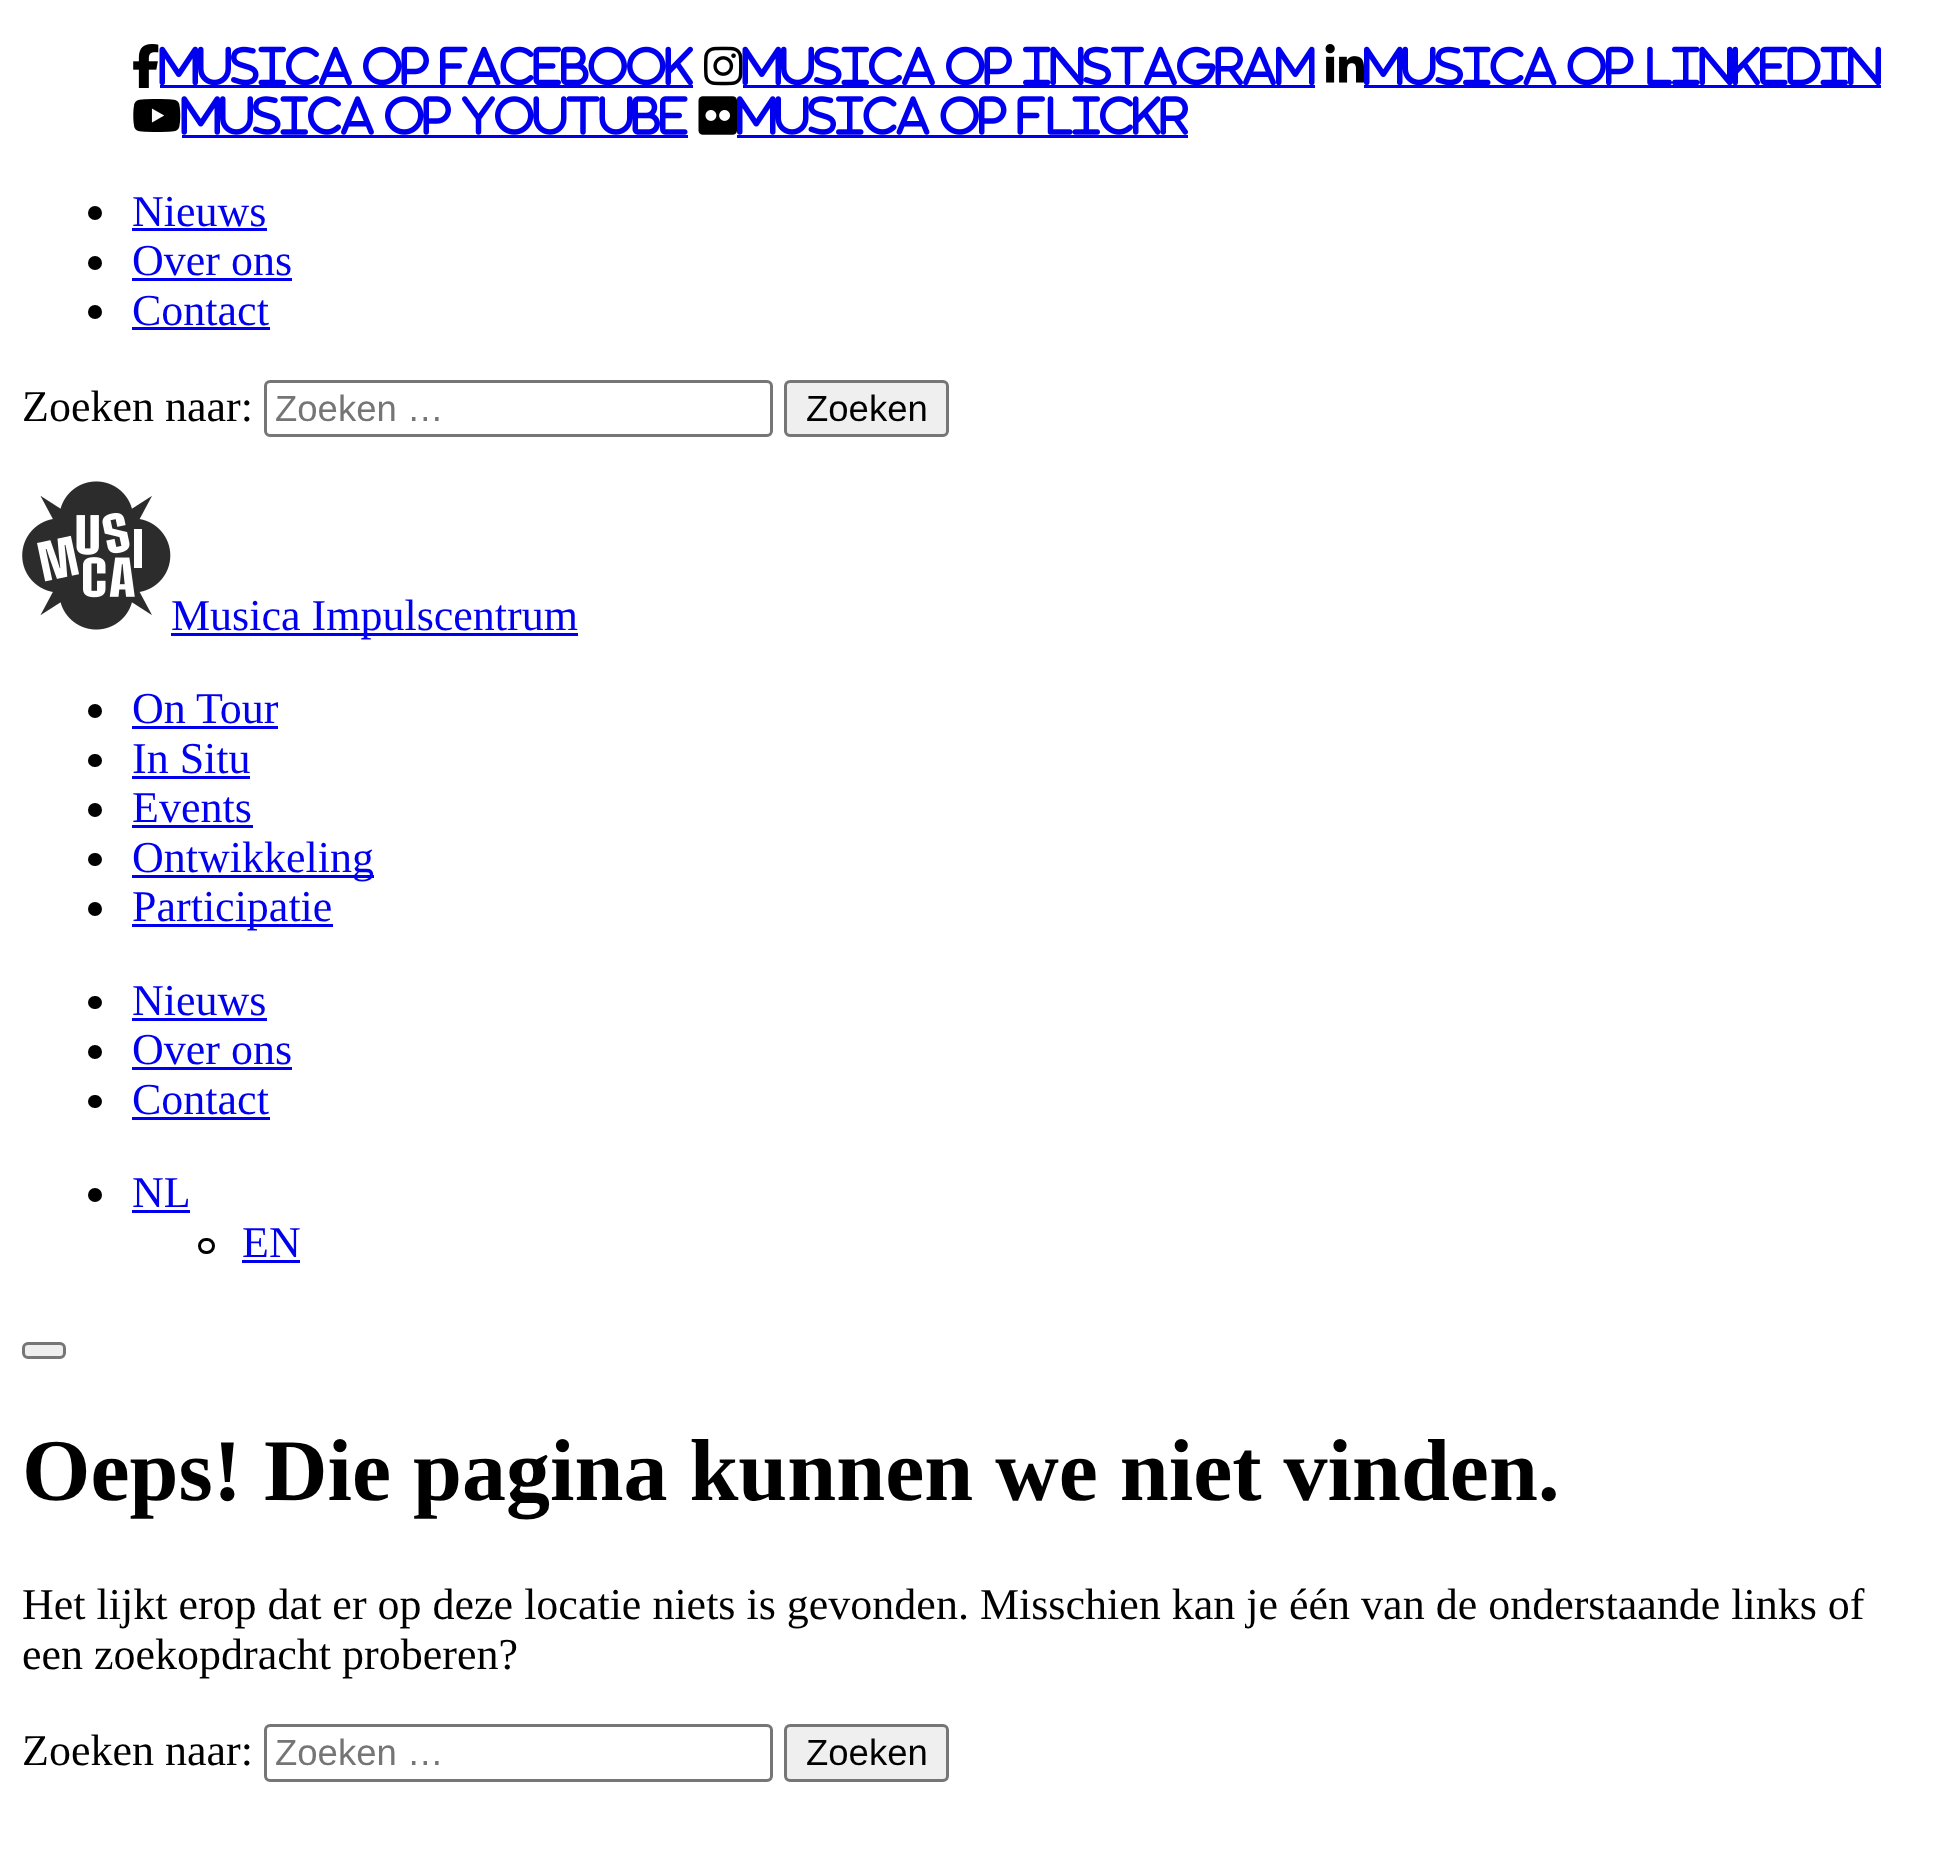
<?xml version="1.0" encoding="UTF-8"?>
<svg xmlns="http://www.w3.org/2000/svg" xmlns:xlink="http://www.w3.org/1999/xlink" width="1956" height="1860">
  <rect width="100%" height="100%" fill="#ffffff" />
  <image x="133" y="44" width="26" height="44" xlink:href="image1.png" />
  <image x="159" y="46" width="193" height="39" xlink:href="image2.png" />
  <image x="363" y="46" width="66" height="39" xlink:href="image3.png" />
  <image x="440" y="46" width="253" height="39" xlink:href="image4.png" />
  <rect x="160" y="85" width="533" height="3" fill="#0000ee" />
  <image x="704" y="46" width="39" height="40" xlink:href="image5.png" />
  <image x="742" y="46" width="193" height="39" xlink:href="image6.png" />
  <image x="946" y="46" width="66" height="39" xlink:href="image3.png" />
  <image x="1023" y="46" width="292" height="39" xlink:href="image7.png" />
  <rect x="743" y="85" width="572" height="3" fill="#0000ee" />
  <image x="1325" y="44" width="39" height="39" xlink:href="image8.png" />
  <image x="1364" y="46" width="193" height="39" xlink:href="image9.png" />
  <image x="1567" y="46" width="67" height="39" xlink:href="image10.png" />
  <image x="1647" y="46" width="234" height="39" xlink:href="image11.png" />
  <rect x="1364" y="85" width="517" height="3" fill="#0000ee" />
  <image x="133" y="99" width="48" height="33" xlink:href="image12.png" />
  <image x="181" y="96" width="193" height="39" xlink:href="image13.png" />
  <image x="385" y="96" width="66" height="39" xlink:href="image14.png" />
  <image x="462" y="96" width="226" height="39" xlink:href="image15.png" />
  <rect x="182" y="135" width="506" height="3" fill="#0000ee" />
  <image x="698" y="96" width="39" height="39" xlink:href="image16.png" />
  <image x="737" y="96" width="193" height="39" xlink:href="image17.png" />
  <image x="940" y="96" width="67" height="39" xlink:href="image18.png" />
  <image x="1017" y="96" width="171" height="39" xlink:href="image19.png" />
  <rect x="737" y="135" width="451" height="3" fill="#0000ee" />
  <circle cx="95" cy="213" r="7" fill="#000000" />
  <rect x="132" y="228" width="135" height="3" fill="#0000ee" />
  <circle cx="95" cy="263" r="7" fill="#000000" />
  <rect x="132" y="278" width="160" height="3" fill="#0000ee" />
  <circle cx="95" cy="312" r="7" fill="#000000" />
  <rect x="132" y="327" width="138" height="3" fill="#0000ee" />
  <rect x="265.5" y="381.5" width="506" height="54" rx="4.5" fill="none" stroke="#767676" stroke-width="3" />
  <rect x="785.5" y="381.5" width="162" height="54" rx="4.5" fill="#efefef" stroke="#767676" stroke-width="3" />
  <image x="22" y="481" width="149" height="149" xlink:href="image20.png" />
  <rect x="171" y="633" width="407" height="3" fill="#0000ee" />
  <circle cx="95" cy="711" r="7" fill="#000000" />
  <rect x="132" y="726" width="146" height="3" fill="#0000ee" />
  <rect x="88" y="754" width="14" height="13" rx="6.5" fill="#000000" />
  <rect x="132" y="776" width="118" height="3" fill="#0000ee" />
  <circle cx="95" cy="810" r="7" fill="#000000" />
  <rect x="132" y="825" width="121" height="3" fill="#0000ee" />
  <rect x="88" y="853" width="14" height="13" rx="6.5" fill="#000000" />
  <rect x="132" y="875" width="242" height="3" fill="#0000ee" />
  <circle cx="95" cy="909" r="7" fill="#000000" />
  <rect x="132" y="924" width="201" height="3" fill="#0000ee" />
  <rect x="88" y="996" width="14" height="13" rx="6.5" fill="#000000" />
  <rect x="132" y="1018" width="135" height="3" fill="#0000ee" />
  <circle cx="95" cy="1052" r="7" fill="#000000" />
  <rect x="132" y="1067" width="160" height="3" fill="#0000ee" />
  <rect x="88" y="1095" width="14" height="13" rx="6.5" fill="#000000" />
  <rect x="132" y="1117" width="138" height="3" fill="#0000ee" />
  <circle cx="95" cy="1195" r="7" fill="#000000" />
  <rect x="132" y="1210" width="58" height="3" fill="#0000ee" />
  <rect x="199.5" y="1239.5" width="14" height="13" rx="6.5" fill="none" stroke="#000000" stroke-width="3" />
  <rect x="242" y="1260" width="58" height="3" fill="#0000ee" />
  <rect x="23.5" y="1343.5" width="41" height="14" rx="4.5" fill="#efefef" stroke="#767676" stroke-width="3" />
  <rect x="265.5" y="1725.5" width="506" height="55" rx="4.5" fill="none" stroke="#767676" stroke-width="3" />
  <rect x="785.5" y="1725.5" width="162" height="55" rx="4.5" fill="#efefef" stroke="#767676" stroke-width="3" />
  <text x="132" y="226" style="font-family: Liberation Serif; font-size: 44px; fill: #0000ee">Nieuws</text>
  <text x="132" y="275" style="font-family: Liberation Serif; font-size: 44px; fill: #0000ee">Over ons</text>
  <text x="132" y="325" style="font-family: Liberation Serif; font-size: 44px; fill: #0000ee">Contact</text>
  <text x="22" y="421" style="font-family: Liberation Serif; font-size: 44px; fill: #000000">Zoeken naar:</text>
  <text x="275" y="421" style="font-family: Liberation Sans; font-size: 36.5px; fill: #757575">Zoeken …</text>
  <text x="806" y="421" style="font-family: Liberation Sans; font-size: 36.5px; fill: #000000">Zoeken</text>
  <text x="171" y="630" style="font-family: Liberation Serif; font-size: 44px; fill: #0000ee">Musica Impulscentrum</text>
  <text x="132" y="723" style="font-family: Liberation Serif; font-size: 44px; fill: #0000ee">On Tour</text>
  <text x="132" y="773" style="font-family: Liberation Serif; font-size: 44px; fill: #0000ee">In Situ</text>
  <text x="132" y="822" style="font-family: Liberation Serif; font-size: 44px; fill: #0000ee">Events</text>
  <text x="132" y="872" style="font-family: Liberation Serif; font-size: 44px; fill: #0000ee">Ontwikkeling</text>
  <text x="132" y="921" style="font-family: Liberation Serif; font-size: 44px; fill: #0000ee">Participatie</text>
  <text x="132" y="1015" style="font-family: Liberation Serif; font-size: 44px; fill: #0000ee">Nieuws</text>
  <text x="132" y="1064" style="font-family: Liberation Serif; font-size: 44px; fill: #0000ee">Over ons</text>
  <text x="132" y="1114" style="font-family: Liberation Serif; font-size: 44px; fill: #0000ee">Contact</text>
  <text x="132" y="1207" style="font-family: Liberation Serif; font-size: 44px; fill: #0000ee">NL</text>
  <text x="242" y="1257" style="font-family: Liberation Serif; font-size: 44px; fill: #0000ee">EN</text>
  <text x="22" y="1500" style="font-family: Liberation Serif; font-size: 88px; font-weight: bold; fill: #000000">Oeps! Die pagina kunnen we niet vinden.</text>
  <text x="22" y="1619" style="font-family: Liberation Serif; font-size: 44px; fill: #000000">Het lijkt erop dat er op deze locatie niets is gevonden. Misschien kan je één van de onderstaande links of</text>
  <text x="22" y="1669" style="font-family: Liberation Serif; font-size: 44px; fill: #000000">een zoekopdracht proberen?</text>
  <text x="22" y="1765" style="font-family: Liberation Serif; font-size: 44px; fill: #000000">Zoeken naar:</text>
  <text x="275" y="1765" style="font-family: Liberation Sans; font-size: 36.5px; fill: #757575">Zoeken …</text>
  <text x="806" y="1765" style="font-family: Liberation Sans; font-size: 36.5px; fill: #000000">Zoeken</text>
</svg>
